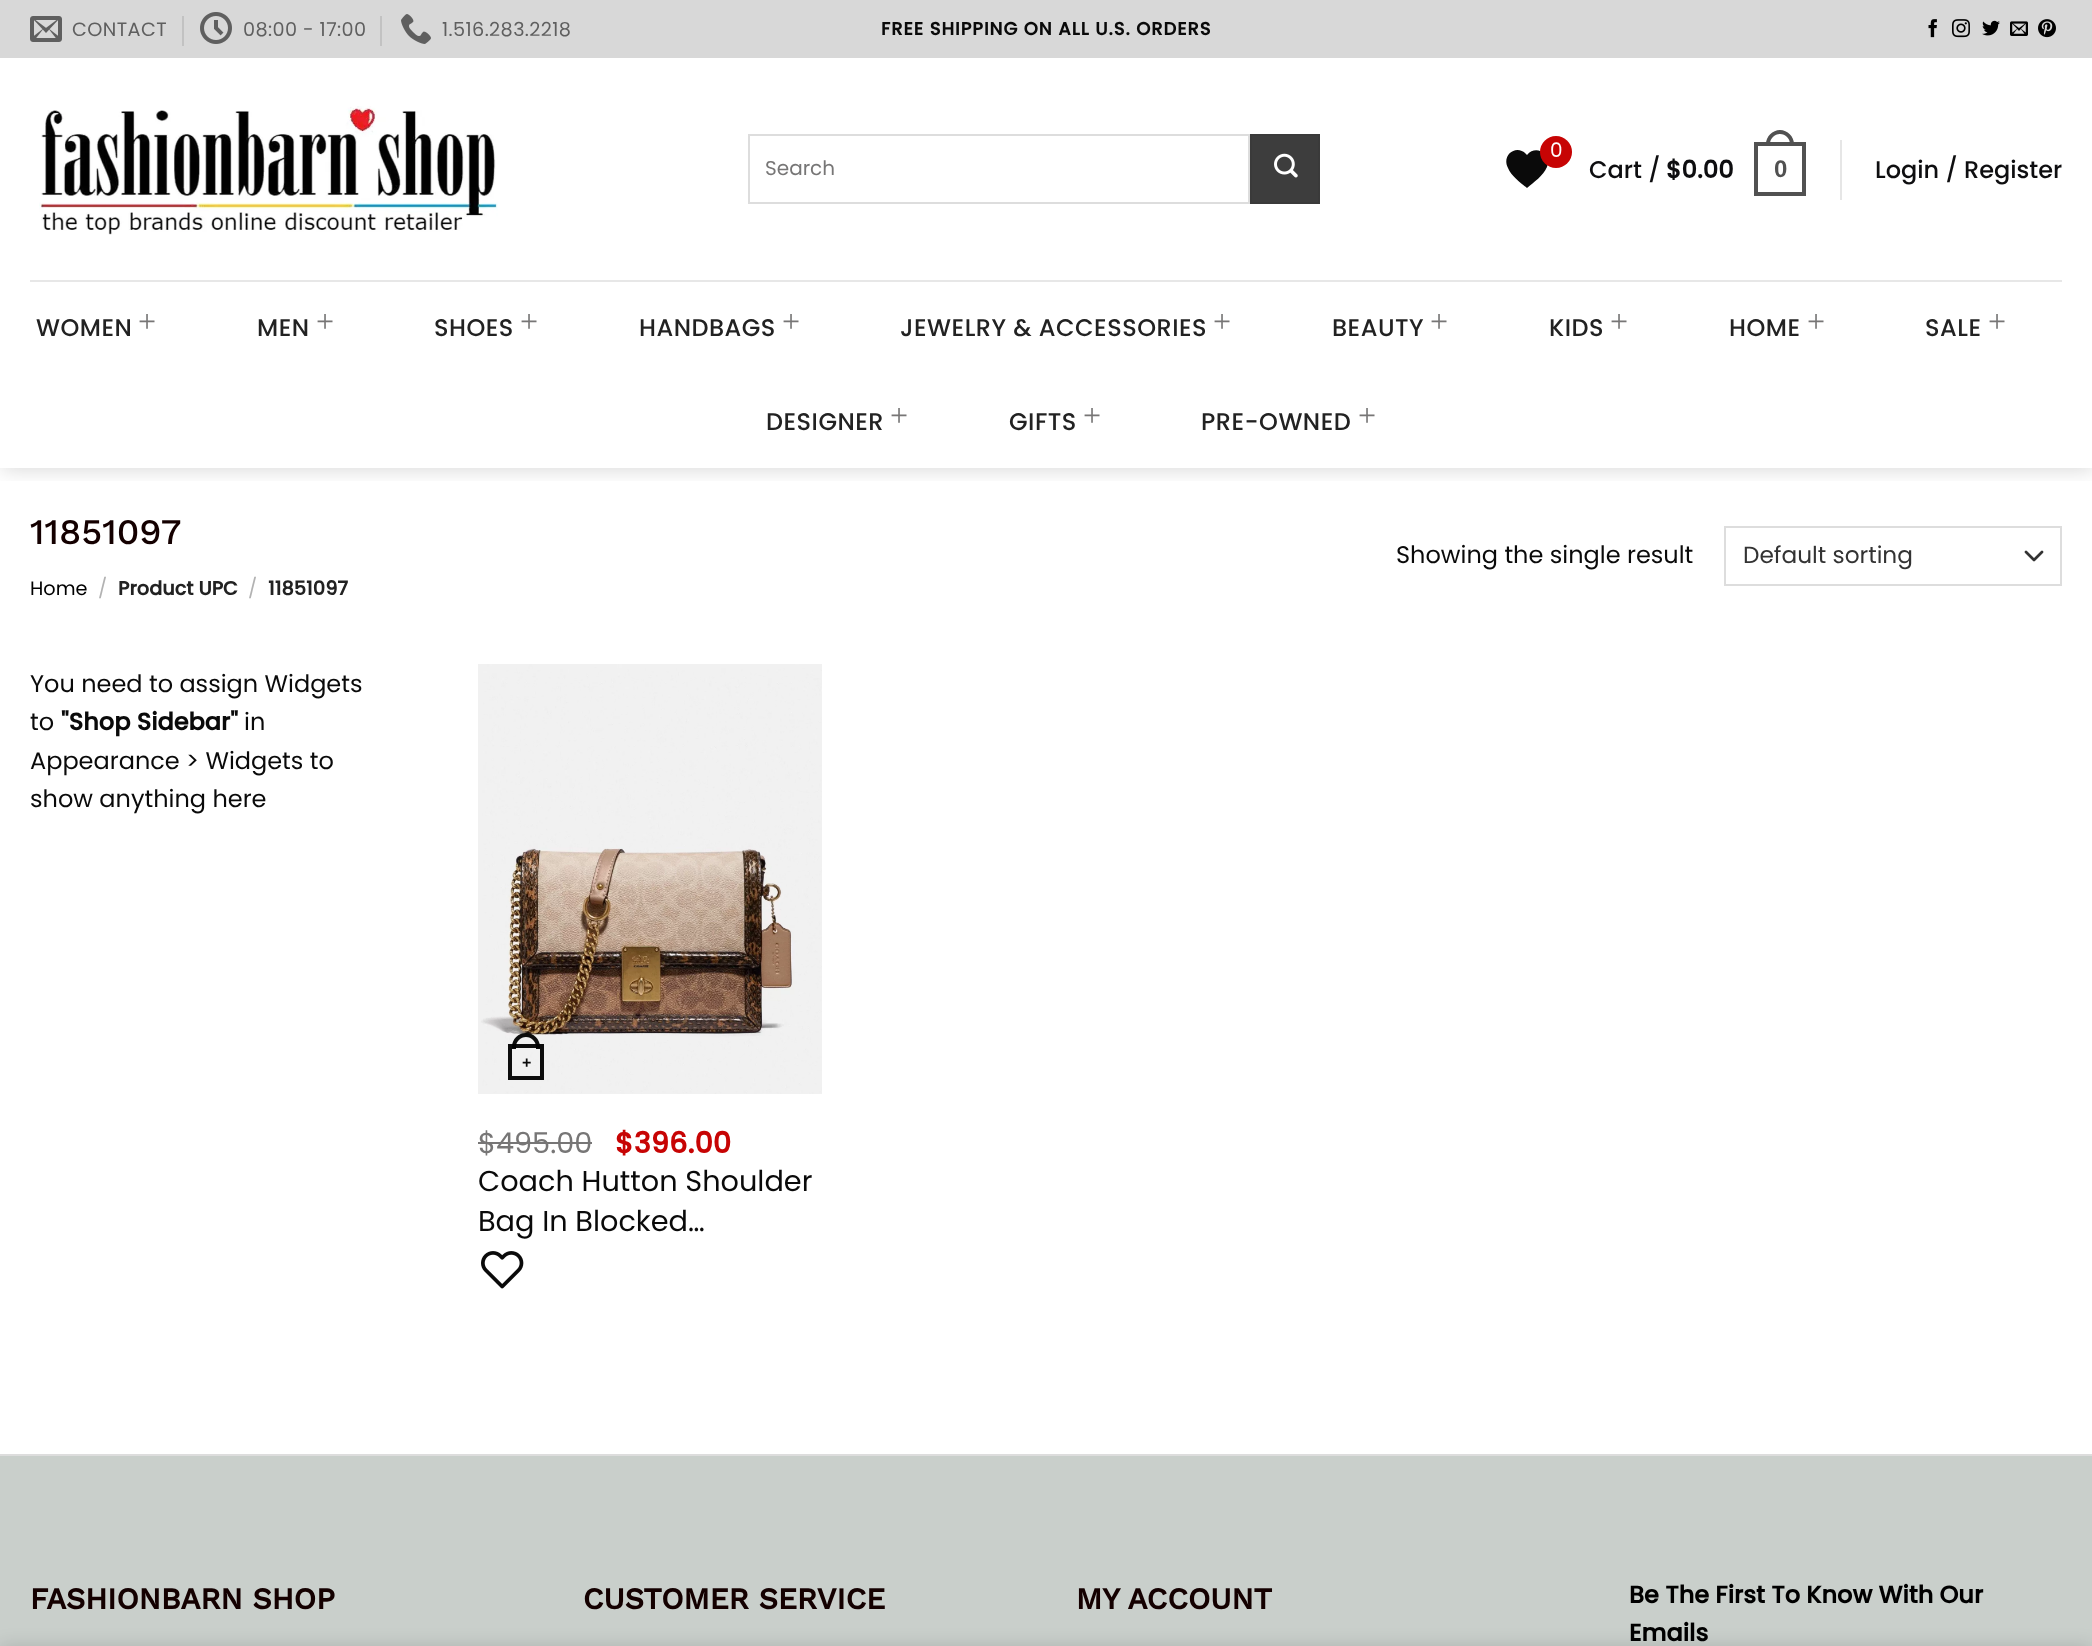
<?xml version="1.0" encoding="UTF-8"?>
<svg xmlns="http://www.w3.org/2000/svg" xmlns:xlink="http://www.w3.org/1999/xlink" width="2092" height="1646">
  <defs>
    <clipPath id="clip1"><rect x="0" y="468" width="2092" height="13" /></clipPath>
  </defs>
  <rect width="100%" height="100%" fill="#ffffff" />
  <g clip-path="url(#clip1)">
    <rect x="2" y="2" width="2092" height="468" fill="#000000" fill-opacity="0.15" filter="blur(10px)" />
  </g>
  <rect width="2092" height="58" fill="#d8d8d8" />
  <image x="30" y="16" width="32" height="26" xlink:href="image1.png" />
  <rect x="182" y="16" width="2" height="30" fill="#c2c2c2" />
  <image x="200" y="12" width="32" height="32" xlink:href="image2.png" />
  <rect x="380" y="16" width="2" height="30" fill="#c2c2c2" />
  <image x="401" y="14" width="30" height="30" xlink:href="image3.png" />
  <image x="1928" y="19" width="9" height="19" xlink:href="image4.png" />
  <image x="1952" y="19" width="18" height="19" xlink:href="image5.png" />
  <image x="1982" y="20" width="18" height="16" xlink:href="image6.png" />
  <image x="2010" y="21" width="18" height="15" xlink:href="image7.png" />
  <image x="2038" y="19" width="18" height="19" xlink:href="image8.png" />
  <image x="39" y="106" width="459" height="129" xlink:href="image9.png" />
  <rect x="749" y="135" width="500" height="68" fill="none" stroke="#dddddd" stroke-width="2" />
  <rect x="1251" y="135" width="68" height="68" fill="#3d3d3d" stroke="#3a3a3a" stroke-width="2" />
  <image x="1274" y="153" width="24" height="25" xlink:href="image10.png" />
  <path d="M 1527 188 c -6 -5 -16 -12 -19 -20 c -7 -13 9 -25 19 -13 c 9 -11 25 -1 20 12 c -4 9 -13 15 -20 21 z" fill="#0a0a0a" />
  <circle cx="1556" cy="152" r="16" fill="#c70404" />
  <rect x="1840" y="140" width="2" height="60" fill="#e6e6e6" />
  <rect x="1756" y="144" width="48" height="50" fill="none" stroke="#515151" stroke-width="4" />
  <path d="M 1780 130 c 7.5 0 14 6.5 14 14 v 2 h -28 v -2 c 0 -7.5 6.5 -14 14 -14 z m 0 4 c 5.5 0 10 4.5 10 10 v 2 h -20 v -2 c 0 -5.5 4.5 -10 10 -10 z" fill="#515151" fill-rule="evenodd" />
  <rect x="30" y="280" width="2032" height="2" fill="#e7e7e7" />
  <path d="M 2026 552 l 8 8 l 8 -8" fill="none" stroke="#333333" stroke-width="2.7" stroke-linecap="round" stroke-linejoin="round" />
  <rect x="1725" y="527" width="336" height="58" fill="none" stroke="#dddddd" stroke-width="2" />
  <image x="478" y="664" width="344" height="430" xlink:href="image11.png" />
  <rect x="510" y="1046" width="32" height="32" fill="none" stroke="#000000" stroke-opacity="0.95" stroke-width="4" />
  <path d="M 526 1033 c 7.5 0 14 6 14 14 v 2 h -28 v -2 c 0 -8 6.5 -14 14 -14 z m 0 4 c 5.5 0 10 4.5 10 10 v 2 h -20 v -2 c 0 -5.5 4.5 -10 10 -10 z" fill="#000000" fill-opacity="0.95" fill-rule="evenodd" />
  <rect x="478" y="1142" width="114" height="2" fill="#777676" />
  <image x="481" y="1251" width="43" height="38" xlink:href="image12.png" />
  <rect y="1454" width="2092" height="2" fill="#dddddd" />
  <rect y="1456" width="2092" height="190" fill="#c9cfcb" />
  <rect y="1646" width="2092" height="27" fill="#000000" fill-opacity="0.14" filter="blur(9px)" />
  <text x="72" y="36" style="font-family: Poppins; font-size: 19.25px; letter-spacing: 0.4px; fill: #5f5f5f">CONTACT</text>
  <text x="243" y="36" style="font-family: Poppins; font-size: 19.25px; letter-spacing: 0.4px; fill: #5f5f5f">08:00 - 17:00</text>
  <text x="442" y="36" style="font-family: Poppins; font-size: 19.25px; letter-spacing: 0.4px; fill: #5f5f5f">1.516.283.2218</text>
  <text x="881" y="35" style="font-family: Poppins; font-size: 18px; font-weight: bold; letter-spacing: 0.9px; fill: #0a0a0a">FREE SHIPPING ON ALL U.S. ORDERS</text>
  <text x="765" y="175" style="font-family: Poppins; font-size: 20px; fill: #777676">Search</text>
  <text x="1550" y="157" style="font-family: Poppins; font-size: 20px; fill: #ffffff">0</text>
  <text x="1589" y="178" style="font-family: Poppins; font-size: 24px; font-weight: 500; fill: #0e0e10">Cart /</text>
  <text x="1666" y="178" style="font-family: Poppins; font-size: 24px; font-weight: bold; fill: #0e0e10">$0.00</text>
  <text x="1774" y="177" style="font-family: Liberation Sans; font-size: 24px; font-weight: bold; fill: #515151">0</text>
  <text x="1875" y="178" style="font-family: Poppins; font-size: 24px; font-weight: 500; fill: #0e0e10">Login / Register</text>
  <text x="36" y="336" style="font-family: Poppins; font-size: 24px; font-weight: 500; letter-spacing: 0.5px; fill: #222222">WOMEN</text>
  <text x="138" y="332" style="font-family: Liberation Serif; font-size: 32px; letter-spacing: 0.5px; fill: #777676">+</text>
  <text x="257" y="336" style="font-family: Poppins; font-size: 24px; font-weight: 500; letter-spacing: 0.5px; fill: #222222">MEN</text>
  <text x="316" y="332" style="font-family: Liberation Serif; font-size: 32px; letter-spacing: 0.5px; fill: #777676">+</text>
  <text x="434" y="336" style="font-family: Poppins; font-size: 24px; font-weight: 500; letter-spacing: 0.5px; fill: #222222">SHOES</text>
  <text x="520" y="332" style="font-family: Liberation Serif; font-size: 32px; letter-spacing: 0.5px; fill: #777676">+</text>
  <text x="639" y="336" style="font-family: Poppins; font-size: 24px; font-weight: 500; letter-spacing: 0.5px; fill: #222222">HANDBAGS</text>
  <text x="782" y="332" style="font-family: Liberation Serif; font-size: 32px; letter-spacing: 0.5px; fill: #777676">+</text>
  <text x="900" y="336" style="font-family: Poppins; font-size: 24px; font-weight: 500; letter-spacing: 0.5px; fill: #222222">JEWELRY &amp; ACCESSORIES</text>
  <text x="1213" y="332" style="font-family: Liberation Serif; font-size: 32px; letter-spacing: 0.5px; fill: #777676">+</text>
  <text x="1332" y="336" style="font-family: Poppins; font-size: 24px; font-weight: 500; letter-spacing: 0.5px; fill: #222222">BEAUTY</text>
  <text x="1430" y="332" style="font-family: Liberation Serif; font-size: 32px; letter-spacing: 0.5px; fill: #777676">+</text>
  <text x="1549" y="336" style="font-family: Poppins; font-size: 24px; font-weight: 500; letter-spacing: 0.5px; fill: #222222">KIDS</text>
  <text x="1610" y="332" style="font-family: Liberation Serif; font-size: 32px; letter-spacing: 0.5px; fill: #777676">+</text>
  <text x="1729" y="336" style="font-family: Poppins; font-size: 24px; font-weight: 500; letter-spacing: 0.5px; fill: #222222">HOME</text>
  <text x="1807" y="332" style="font-family: Liberation Serif; font-size: 32px; letter-spacing: 0.5px; fill: #777676">+</text>
  <text x="1925" y="336" style="font-family: Poppins; font-size: 24px; font-weight: 500; letter-spacing: 0.5px; fill: #222222">SALE</text>
  <text x="1988" y="332" style="font-family: Liberation Serif; font-size: 32px; letter-spacing: 0.5px; fill: #777676">+</text>
  <text x="766" y="430" style="font-family: Poppins; font-size: 24px; font-weight: 500; letter-spacing: 0.5px; fill: #222222">DESIGNER</text>
  <text x="890" y="426" style="font-family: Liberation Serif; font-size: 32px; letter-spacing: 0.5px; fill: #777676">+</text>
  <text x="1009" y="430" style="font-family: Poppins; font-size: 24px; font-weight: 500; letter-spacing: 0.5px; fill: #222222">GIFTS</text>
  <text x="1083" y="426" style="font-family: Liberation Serif; font-size: 32px; letter-spacing: 0.5px; fill: #777676">+</text>
  <text x="1201" y="430" style="font-family: Poppins; font-size: 24px; font-weight: 500; letter-spacing: 0.5px; fill: #222222">PRE-OWNED</text>
  <text x="1358" y="426" style="font-family: Liberation Serif; font-size: 32px; letter-spacing: 0.5px; fill: #777676">+</text>
  <text x="30" y="544" style="font-family: Work Sans; font-size: 36px; font-weight: 500; fill: #140000">11851097</text>
  <text x="30" y="595" style="font-family: Poppins; font-size: 19.25px; fill: #000000">Home</text>
  <text x="98" y="595" style="font-family: Poppins; font-size: 19.25px; fill: #b2b2b2">/</text>
  <text x="118" y="595" style="font-family: Poppins; font-size: 19.25px; font-weight: bold; fill: #222222">Product UPC</text>
  <text x="248" y="595" style="font-family: Poppins; font-size: 19.25px; fill: #b2b2b2">/</text>
  <text x="268" y="595" style="font-family: Poppins; font-size: 19.25px; font-weight: bold; fill: #222222">11851097</text>
  <text x="1396" y="563" style="font-family: Poppins; font-size: 24px; fill: #0a0a0a">Showing the single result</text>
  <text x="1743" y="563" style="font-family: Poppins; font-size: 23.25px; fill: #333333">Default sorting</text>
  <text x="30" y="692" style="font-family: Poppins; font-size: 24px; fill: #0a0a0a">You need to assign Widgets</text>
  <text x="30" y="730" style="font-family: Poppins; font-size: 24px; fill: #0a0a0a">to</text>
  <text x="61" y="730" style="font-family: Poppins; font-size: 24px; font-weight: bold; fill: #0a0a0a">"Shop Sidebar"</text>
  <text x="244" y="730" style="font-family: Poppins; font-size: 24px; fill: #0a0a0a">in</text>
  <text x="30" y="769" style="font-family: Poppins; font-size: 24px; fill: #0a0a0a">Appearance &gt; Widgets to</text>
  <text x="30" y="807" style="font-family: Poppins; font-size: 24px; fill: #0a0a0a">show anything here</text>
  <text x="522" y="1068" style="font-family: Liberation Sans; font-size: 16px; font-weight: bold; fill: #0a0a0a">+</text>
  <text x="478" y="1153" style="font-family: Poppins; font-size: 28.75px; fill: #777676">$495.00</text>
  <text x="615" y="1153" style="font-family: Poppins; font-size: 28.75px; font-weight: bold; fill: #c70404">$396.00</text>
  <text x="478" y="1191" style="font-family: Poppins; font-size: 28.75px; fill: #0a0a0a">Coach Hutton Shoulder</text>
  <text x="478" y="1231" style="font-family: Poppins; font-size: 28.75px; fill: #0a0a0a">Bag In Blocked…</text>
  <text x="30" y="1609" style="font-family: Work Sans; font-size: 30px; font-weight: bold; fill: #140000">FASHIONBARN SHOP</text>
  <text x="583" y="1609" style="font-family: Work Sans; font-size: 30px; font-weight: bold; fill: #140000">CUSTOMER SERVICE</text>
  <text x="1076" y="1609" style="font-family: Work Sans; font-size: 30px; font-weight: bold; fill: #140000">MY ACCOUNT</text>
  <text x="1629" y="1603" style="font-family: Poppins; font-size: 24px; font-weight: bold; fill: #000000">Be The First To Know With Our</text>
  <text x="1629" y="1641" style="font-family: Poppins; font-size: 24px; font-weight: bold; fill: #000000">Emails</text>
</svg>
